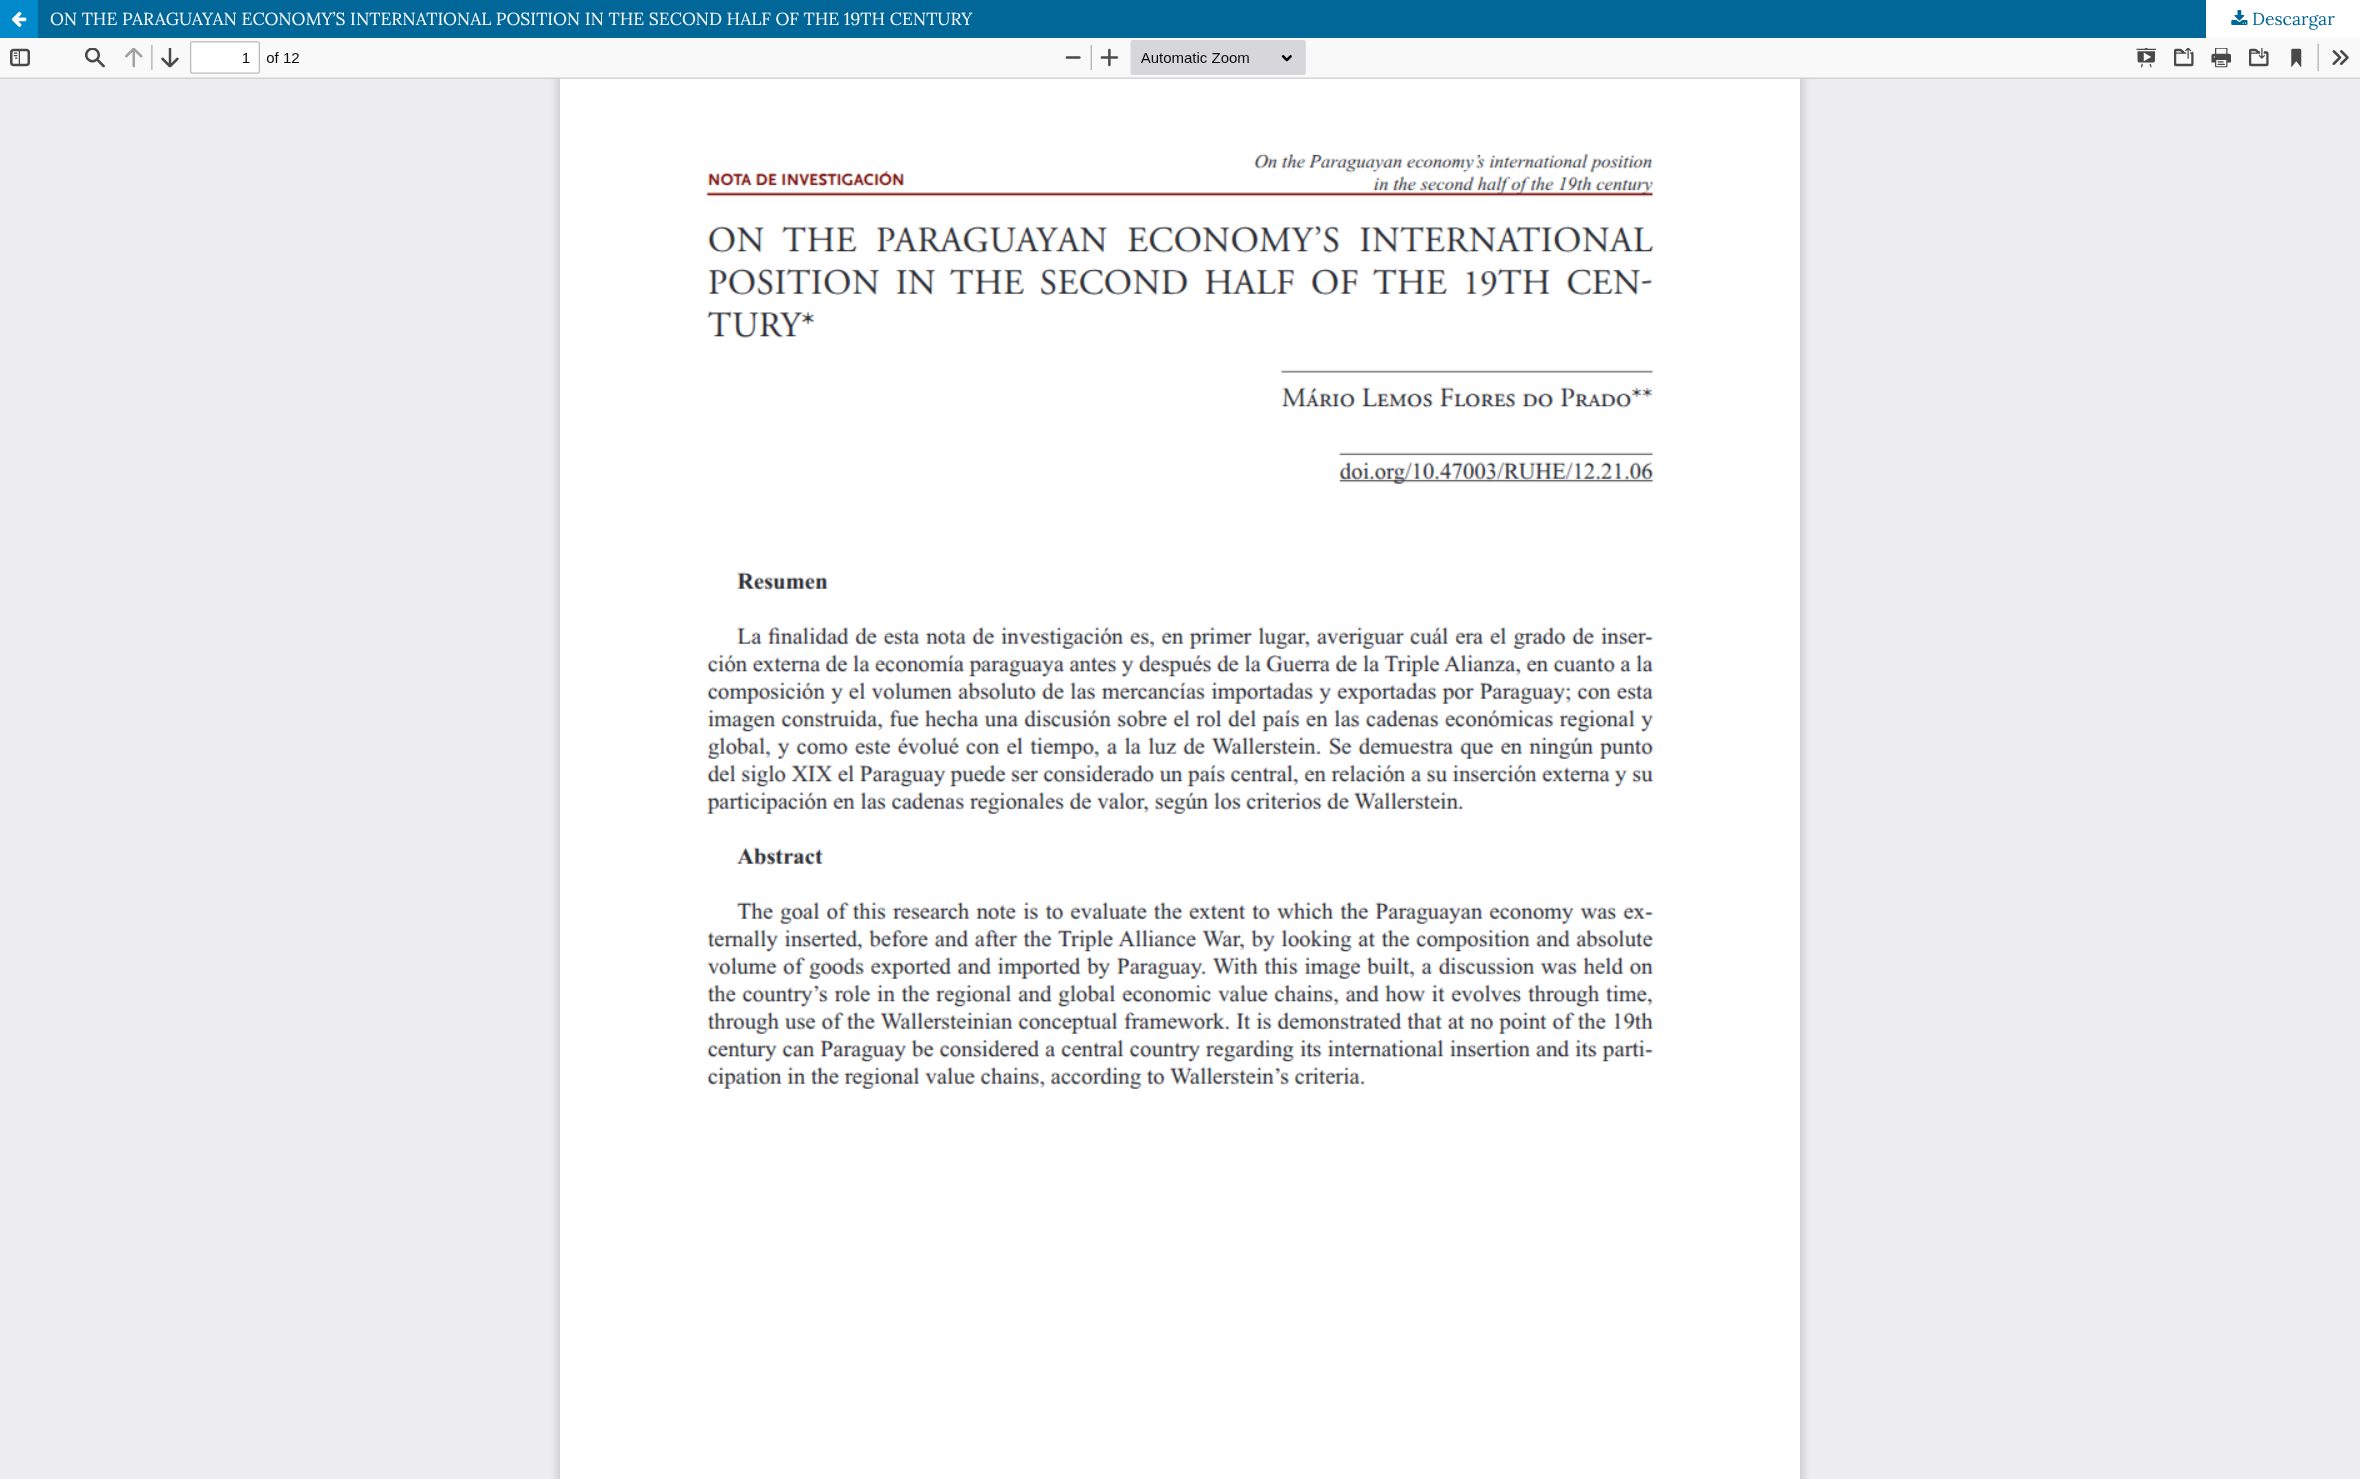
<?xml version="1.0" encoding="UTF-8"?>
<svg xmlns="http://www.w3.org/2000/svg" xmlns:xlink="http://www.w3.org/1999/xlink" width="2360" height="1479">
  <rect width="100%" height="100%" fill="#ffffff" />
  <rect x="38" width="2168" height="38" fill="#006798" />
  <rect width="38" height="38" fill="#008acb" />
  <image x="11" y="11" width="16" height="16" xlink:href="image1.png" />
  <image x="2231" y="10" width="17" height="15" xlink:href="image2.png" />
  <image x="0" y="38" width="2360" height="1441" xlink:href="image3.png" />
  <text x="50" y="25" style="font-family: Lora; font-size: 17.5px; fill: #ffffff">ON THE PARAGUAYAN ECONOMY’S INTERNATIONAL POSITION IN THE SECOND HALF OF THE 19TH CENTURY</text>
  <text x="2252" y="25" style="font-family: Lora; font-size: 17.5px; fill: #006798">Descargar</text>
</svg>
